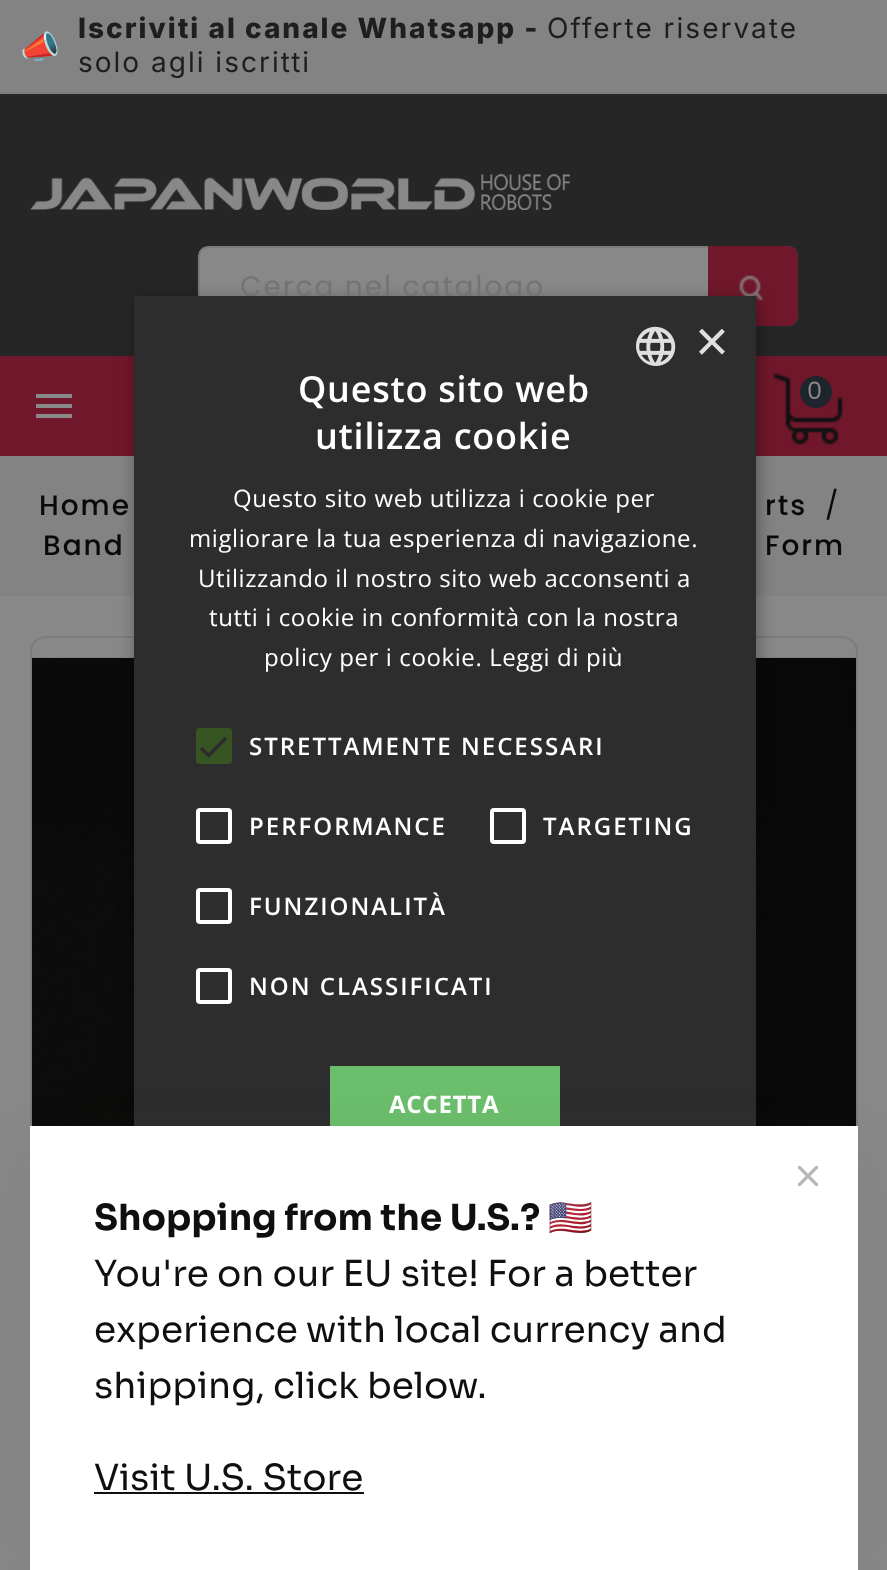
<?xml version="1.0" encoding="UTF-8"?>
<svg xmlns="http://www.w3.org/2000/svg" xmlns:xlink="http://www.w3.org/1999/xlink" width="887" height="1570">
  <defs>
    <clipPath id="clip1"><rect x="798" y="1166" width="20" height="20" /></clipPath>
  </defs>
  <rect width="100%" height="100%" fill="#888888" />
  <rect width="887" height="92" fill="#838383" />
  <rect y="92" width="887" height="2" fill="#7d7d7d" />
  <rect y="94" width="887" height="262" fill="#262626" />
  <image x="30" y="174" width="540" height="36" xlink:href="image1.png" />
  <rect x="199" y="247" width="598" height="78" rx="9" fill="#888888" stroke="#7b7b7b" stroke-width="2" />
  <path d="M 708 246 h 80 c 5.5 0 10 4.5 10 10 v 60 c 0 5.5 -4.5 10 -10 10 h -80 z" fill="#70172b" />
  <image x="739" y="275" width="24" height="26" xlink:href="image2.png" />
  <rect y="356" width="887" height="100" fill="#70172b" />
  <image x="773" y="373" width="70" height="72" xlink:href="image3.png" />
  <circle cx="816" cy="392" r="16" fill="#1e242c" />
  <path d="M 36 394 h 36 v 4 h -36 z m 0 14 v -4 h 36 v 4 z m 0 10 v -4 h 36 v 4 z" fill="#888888" />
  <rect y="456" width="887" height="140" fill="#838383" />
  <rect x="31" y="637" width="826" height="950" rx="15" fill="none" stroke="#7b7b7b" stroke-width="2" />
  <image x="32" y="657" width="824" height="469" xlink:href="image4.png" />
  <rect x="136" y="300" width="622" height="978" fill="#000000" fill-opacity="0.35" filter="blur(8px)" />
  <text x="20" y="58" style="font-family: Noto Color Emoji; font-size: 32px; letter-spacing: 2px; fill: #1e1e1e">📣</text>
  <text x="78" y="38" style="font-family: Inter; font-size: 28px; font-weight: 800; letter-spacing: 2px; fill: #1e1e1e">Iscriviti al canale Whatsapp -</text>
  <text x="547" y="38" style="font-family: Inter; font-size: 28px; letter-spacing: 2px; fill: #1e1e1e">Offerte riservate</text>
  <text x="78" y="72" style="font-family: Inter; font-size: 28px; letter-spacing: 2px; fill: #1e1e1e">solo agli iscritti</text>
  <text x="240" y="296" style="font-family: Poppins; font-size: 28px; letter-spacing: 2px; fill: #747372">Cerca nel catalogo</text>
  <text x="807" y="399" style="font-family: Poppins; font-size: 24px; letter-spacing: 2px; fill: #888888">0</text>
  <text x="39" y="515" style="font-family: Poppins; font-size: 28px; font-weight: 500; letter-spacing: 2px; fill: #090909">Home</text>
  <text x="765" y="515" style="font-family: Poppins; font-size: 28px; font-weight: 500; letter-spacing: 2px; fill: #090909">rts</text>
  <text x="825" y="515" style="font-family: Poppins; font-size: 28px; letter-spacing: 2px; fill: #090909">/</text>
  <text x="43" y="555" style="font-family: Poppins; font-size: 28px; font-weight: 500; letter-spacing: 2px; fill: #090909">Band</text>
  <text x="765" y="555" style="font-family: Poppins; font-size: 28px; font-weight: 500; letter-spacing: 2px; fill: #090909">Form</text>
  <rect x="134" y="296" width="622" height="830" fill="#2d2d2d" />
  <image x="636" y="326" width="40" height="40" xlink:href="image5.png" />
  <text x="695" y="361" style="font-family: Liberation Sans; font-size: 58px; fill: #e0e0e0">×</text>
  <text x="298" y="402" style="font-family: Open Sans; font-size: 36px; font-weight: 600; letter-spacing: 0.75px; fill: #ffffff">Questo sito web</text>
  <text x="315" y="449" style="font-family: Open Sans; font-size: 36px; font-weight: 600; letter-spacing: 0.75px; fill: #ffffff">utilizza cookie</text>
  <text x="233" y="507" style="font-family: Open Sans; font-size: 24px; letter-spacing: 0.6px; fill: #ffffff">Questo sito web utilizza i cookie per</text>
  <text x="189" y="547" style="font-family: Open Sans; font-size: 24px; letter-spacing: 0.6px; fill: #ffffff">migliorare la tua esperienza di navigazione.</text>
  <text x="198" y="587" style="font-family: Open Sans; font-size: 24px; letter-spacing: 0.6px; fill: #ffffff">Utilizzando il nostro sito web acconsenti a</text>
  <text x="209" y="626" style="font-family: Open Sans; font-size: 24px; letter-spacing: 0.6px; fill: #ffffff">tutti i cookie in conformità con la nostra</text>
  <text x="264" y="666" style="font-family: Open Sans; font-size: 24px; letter-spacing: 0.6px; fill: #ffffff">policy per i cookie. Leggi di più</text>
  <rect x="196" y="728" width="36" height="36" rx="4" fill="#375523" />
  <path d="M 201 748 l 7.5 7.5 l 17.5 -17.5" fill="none" stroke="#2d2d2d" stroke-width="3.6" />
  <text x="249" y="755" style="font-family: Open Sans; font-size: 24px; font-weight: 600; letter-spacing: 2px; fill: #ffffff">STRETTAMENTE NECESSARI</text>
  <rect x="198" y="810" width="32" height="32" rx="2" fill="none" stroke="#ffffff" stroke-width="4" />
  <text x="249" y="835" style="font-family: Open Sans; font-size: 24px; font-weight: 600; letter-spacing: 2px; fill: #ffffff">PERFORMANCE</text>
  <rect x="492" y="810" width="32" height="32" rx="2" fill="none" stroke="#ffffff" stroke-width="4" />
  <text x="543" y="835" style="font-family: Open Sans; font-size: 24px; font-weight: 600; letter-spacing: 2px; fill: #ffffff">TARGETING</text>
  <rect x="198" y="890" width="32" height="32" rx="2" fill="none" stroke="#ffffff" stroke-width="4" />
  <text x="249" y="915" style="font-family: Open Sans; font-size: 24px; font-weight: 600; letter-spacing: 2px; fill: #ffffff">FUNZIONALITÀ</text>
  <rect x="198" y="970" width="32" height="32" rx="2" fill="none" stroke="#ffffff" stroke-width="4" />
  <text x="249" y="995" style="font-family: Open Sans; font-size: 24px; font-weight: 600; letter-spacing: 2px; fill: #ffffff">NON CLASSIFICATI</text>
  <rect x="330" y="1066" width="230" height="60" fill="#6bbe6b" />
  <text x="389" y="1113" style="font-family: Open Sans; font-size: 24px; font-weight: bold; letter-spacing: 0.75px; fill: #ffffff">ACCETTA</text>
  <rect x="40" y="1158" width="808" height="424" fill="#363d4d" fill-opacity="0.15" filter="blur(32px)" />
  <rect x="30" y="1126" width="828" height="444" fill="#ffffff" />
  <g clip-path="url(#clip1)">
    <path d="M 799 1167 l 18 18 m 0 -18 l -18 18" fill="none" stroke="#b7b7b7" stroke-width="3.3" stroke-linecap="round" stroke-linejoin="round" />
  </g>
  <text x="94" y="1230" style="font-family: Sora; font-size: 36px; font-weight: bold; fill: #0f0f0f">Shopping from the U.S.?</text>
  <text x="548" y="1230" style="font-family: Noto Color Emoji; font-size: 36px; font-weight: bold; fill: #0f0f0f">🇺🇸</text>
  <text x="94" y="1286" style="font-family: Sora; font-size: 36px; fill: #0f0f0f">You're on our EU site! For a better</text>
  <text x="94" y="1342" style="font-family: Sora; font-size: 36px; fill: #0f0f0f">experience with local currency and</text>
  <text x="94" y="1398" style="font-family: Sora; font-size: 36px; fill: #0f0f0f">shipping, click below.</text>
  <text x="94" y="1490" style="font-family: Sora; font-size: 36px; fill: #0f0f0f">Visit U.S. Store</text>
  <rect x="94" y="1492" width="270" height="2" fill="#0f0f0f" />
</svg>
